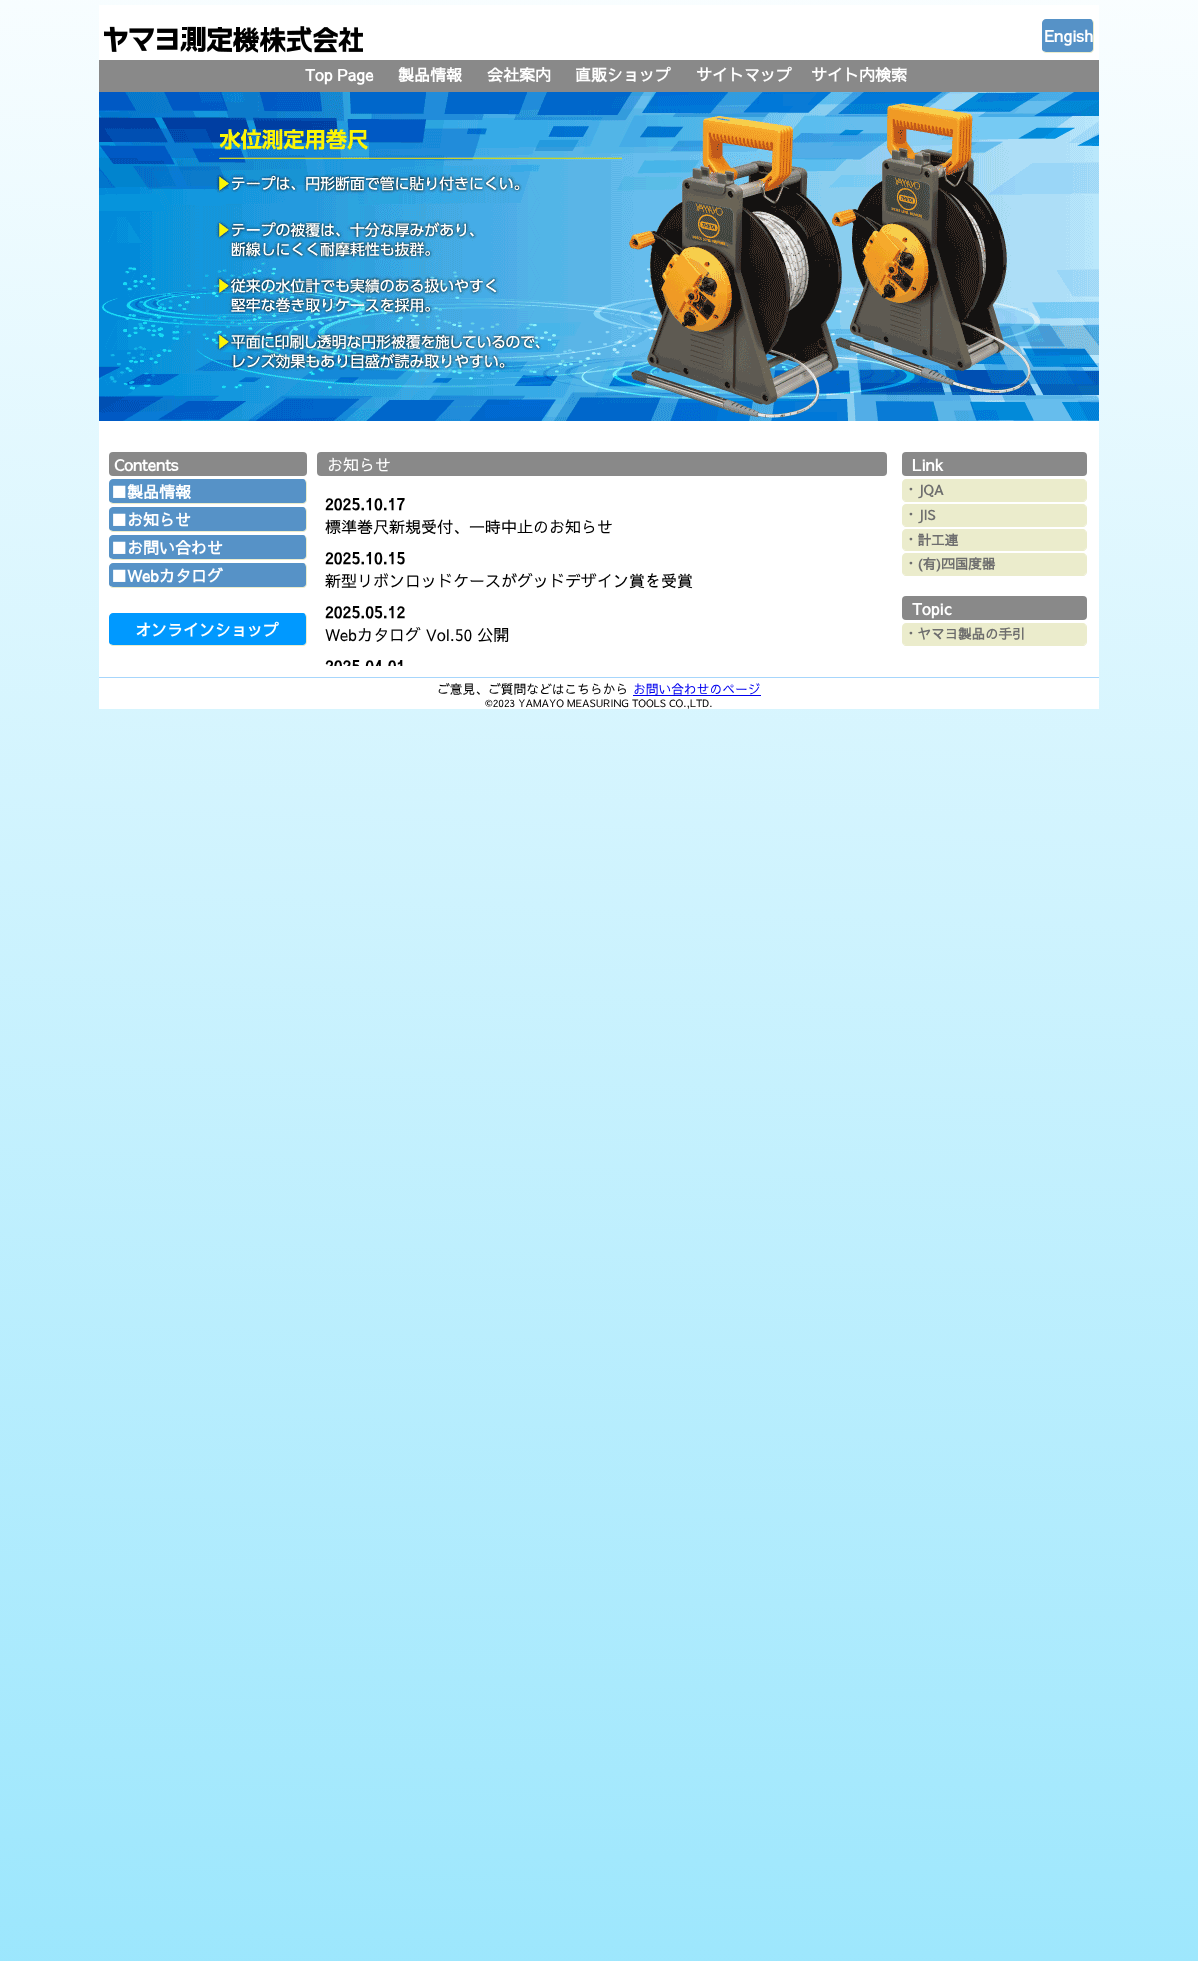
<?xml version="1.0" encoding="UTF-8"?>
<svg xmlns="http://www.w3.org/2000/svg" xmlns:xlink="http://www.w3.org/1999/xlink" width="1198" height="1961">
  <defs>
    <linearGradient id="g1" gradientUnits="userSpaceOnUse" x1="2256" y1="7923" x2="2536" y2="-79"><stop offset="0" stop-color="#ffffff" /><stop offset="0.5" stop-color="#45d1fb" /><stop offset="1" stop-color="#ffffff" /></linearGradient>
  </defs>
  <rect width="100%" height="100%" fill="#ffffff" />
  <rect width="1198" height="1961" fill="url(#g1)" />
  <rect x="99" y="5" width="1000" height="704" fill="#ffffff" />
  <image x="104" y="26" width="259" height="27" xlink:href="image1.png" />
  <path d="M 1046 19 h 44 c 2 0 3 2 3 4 v 26 c 0 2 -1 3 -3 3 h -44 c -2 0 -4 -1 -4 -3 v -26 c 0 -2 2 -4 4 -4 z" fill="#5692c7" />
  <path d="M 1046 19 h 44 c 2 0 4 2 4 4 v 26 c 0 2 -2 4 -4 4 h -44 c -2 0 -4 -2 -4 -4 v -26 c 0 -2 2 -4 4 -4 z m 0 0 h 44 c 2 0 3 2 3 4 v 26 c 0 2 -1 3 -3 3 h -44 c -2 0 -4 -1 -4 -3 v -26 c 0 -2 2 -4 4 -4 z" fill="#ebeccc" fill-rule="evenodd" />
  <rect x="99" y="60" width="1000" height="32" fill="#898989" />
  <image x="99" y="92" width="1000" height="329" xlink:href="image2.png" />
  <rect x="109" y="452" width="198" height="24" rx="4" fill="#898989" />
  <path d="M 113 479 h 190 c 2 0 3 2 3 4 v 17 c 0 2 -1 3 -3 3 h -190 c -2 0 -4 -1 -4 -3 v -17 c 0 -2 2 -4 4 -4 z" fill="#5692c7" />
  <path d="M 113 479 h 190 c 2 0 4 2 4 4 v 17 c 0 2 -2 4 -4 4 h -190 c -2 0 -4 -2 -4 -4 v -17 c 0 -2 2 -4 4 -4 z m 0 0 h 190 c 2 0 3 2 3 4 v 17 c 0 2 -1 3 -3 3 h -190 c -2 0 -4 -1 -4 -3 v -17 c 0 -2 2 -4 4 -4 z" fill="#ebeccc" fill-rule="evenodd" />
  <path d="M 113 507 h 190 c 2 0 3 2 3 4 v 17 c 0 2 -1 3 -3 3 h -190 c -2 0 -4 -1 -4 -3 v -17 c 0 -2 2 -4 4 -4 z" fill="#5692c7" />
  <path d="M 113 507 h 190 c 2 0 4 2 4 4 v 17 c 0 2 -2 4 -4 4 h -190 c -2 0 -4 -2 -4 -4 v -17 c 0 -2 2 -4 4 -4 z m 0 0 h 190 c 2 0 3 2 3 4 v 17 c 0 2 -1 3 -3 3 h -190 c -2 0 -4 -1 -4 -3 v -17 c 0 -2 2 -4 4 -4 z" fill="#ebeccc" fill-rule="evenodd" />
  <path d="M 113 535 h 190 c 2 0 3 2 3 4 v 17 c 0 2 -1 3 -3 3 h -190 c -2 0 -4 -1 -4 -3 v -17 c 0 -2 2 -4 4 -4 z" fill="#5692c7" />
  <path d="M 113 535 h 190 c 2 0 4 2 4 4 v 17 c 0 2 -2 4 -4 4 h -190 c -2 0 -4 -2 -4 -4 v -17 c 0 -2 2 -4 4 -4 z m 0 0 h 190 c 2 0 3 2 3 4 v 17 c 0 2 -1 3 -3 3 h -190 c -2 0 -4 -1 -4 -3 v -17 c 0 -2 2 -4 4 -4 z" fill="#ebeccc" fill-rule="evenodd" />
  <path d="M 113 563 h 190 c 2 0 3 2 3 4 v 17 c 0 2 -1 3 -3 3 h -190 c -2 0 -4 -1 -4 -3 v -17 c 0 -2 2 -4 4 -4 z" fill="#5692c7" />
  <path d="M 113 563 h 190 c 2 0 4 2 4 4 v 17 c 0 2 -2 4 -4 4 h -190 c -2 0 -4 -2 -4 -4 v -17 c 0 -2 2 -4 4 -4 z m 0 0 h 190 c 2 0 3 2 3 4 v 17 c 0 2 -1 3 -3 3 h -190 c -2 0 -4 -1 -4 -3 v -17 c 0 -2 2 -4 4 -4 z" fill="#ebeccc" fill-rule="evenodd" />
  <path d="M 113 613 h 190 c 2 0 3 2 3 4 v 25 c 0 2 -1 3 -3 3 h -190 c -2 0 -4 -1 -4 -3 v -25 c 0 -2 2 -4 4 -4 z" fill="#0099ff" />
  <path d="M 113 613 h 190 c 2 0 4 2 4 4 v 25 c 0 2 -2 4 -4 4 h -190 c -2 0 -4 -2 -4 -4 v -25 c 0 -2 2 -4 4 -4 z m 0 0 h 190 c 2 0 3 2 3 4 v 25 c 0 2 -1 3 -3 3 h -190 c -2 0 -4 -1 -4 -3 v -25 c 0 -2 2 -4 4 -4 z" fill="#ebeccc" fill-rule="evenodd" />
  <rect x="317" y="452" width="570" height="24" rx="4" fill="#898989" />
  <image x="325" y="498" width="368" height="168" xlink:href="image3.png" />
  <rect x="902" y="452" width="185" height="24" rx="4" fill="#898989" />
  <path d="M 906 479 h 177 c 2 0 3 2 3 4 v 15 c 0 2 -1 3 -3 3 h -177 c -2 0 -4 -1 -4 -3 v -15 c 0 -2 2 -4 4 -4 z" fill="#ebeccc" />
  <path d="M 906 479 h 177 c 2 0 4 2 4 4 v 15 c 0 2 -2 4 -4 4 h -177 c -2 0 -4 -2 -4 -4 v -15 c 0 -2 2 -4 4 -4 z m 0 0 h 177 c 2 0 3 2 3 4 v 15 c 0 2 -1 3 -3 3 h -177 c -2 0 -4 -1 -4 -3 v -15 c 0 -2 2 -4 4 -4 z" fill="#ebeccc" fill-rule="evenodd" />
  <path d="M 906 504 h 177 c 2 0 3 2 3 4 v 15 c 0 2 -1 3 -3 3 h -177 c -2 0 -4 -1 -4 -3 v -15 c 0 -2 2 -4 4 -4 z" fill="#ebeccc" />
  <path d="M 906 504 h 177 c 2 0 4 2 4 4 v 15 c 0 2 -2 4 -4 4 h -177 c -2 0 -4 -2 -4 -4 v -15 c 0 -2 2 -4 4 -4 z m 0 0 h 177 c 2 0 3 2 3 4 v 15 c 0 2 -1 3 -3 3 h -177 c -2 0 -4 -1 -4 -3 v -15 c 0 -2 2 -4 4 -4 z" fill="#ebeccc" fill-rule="evenodd" />
  <path d="M 906 529 h 177 c 2 0 3 2 3 4 v 14 c 0 2 -1 3 -3 3 h -177 c -2 0 -4 -1 -4 -3 v -14 c 0 -2 2 -4 4 -4 z" fill="#ebeccc" />
  <path d="M 906 529 h 177 c 2 0 4 2 4 4 v 14 c 0 2 -2 4 -4 4 h -177 c -2 0 -4 -2 -4 -4 v -14 c 0 -2 2 -4 4 -4 z m 0 0 h 177 c 2 0 3 2 3 4 v 14 c 0 2 -1 3 -3 3 h -177 c -2 0 -4 -1 -4 -3 v -14 c 0 -2 2 -4 4 -4 z" fill="#ebeccc" fill-rule="evenodd" />
  <path d="M 906 553 h 177 c 2 0 3 2 3 4 v 15 c 0 2 -1 3 -3 3 h -177 c -2 0 -4 -1 -4 -3 v -15 c 0 -2 2 -4 4 -4 z" fill="#ebeccc" />
  <path d="M 906 553 h 177 c 2 0 4 2 4 4 v 15 c 0 2 -2 4 -4 4 h -177 c -2 0 -4 -2 -4 -4 v -15 c 0 -2 2 -4 4 -4 z m 0 0 h 177 c 2 0 3 2 3 4 v 15 c 0 2 -1 3 -3 3 h -177 c -2 0 -4 -1 -4 -3 v -15 c 0 -2 2 -4 4 -4 z" fill="#ebeccc" fill-rule="evenodd" />
  <rect x="902" y="596" width="185" height="24" rx="4" fill="#898989" />
  <path d="M 906 623 h 177 c 2 0 3 2 3 4 v 15 c 0 2 -1 3 -3 3 h -177 c -2 0 -4 -1 -4 -3 v -15 c 0 -2 2 -4 4 -4 z" fill="#ebeccc" />
  <path d="M 906 623 h 177 c 2 0 4 2 4 4 v 15 c 0 2 -2 4 -4 4 h -177 c -2 0 -4 -2 -4 -4 v -15 c 0 -2 2 -4 4 -4 z m 0 0 h 177 c 2 0 3 2 3 4 v 15 c 0 2 -1 3 -3 3 h -177 c -2 0 -4 -1 -4 -3 v -15 c 0 -2 2 -4 4 -4 z" fill="#ebeccc" fill-rule="evenodd" />
  <rect x="99" y="677" width="1000" height="1" fill="#a7d6fc" />
  <rect x="633" y="695" width="128" height="1" fill="#0000ee" />
  <text x="1044" y="42" style="font-family: Sawarabi Gothic; font-size: 16px; font-weight: bold; fill: #ffffff">Engish</text>
  <text x="305" y="81" style="font-family: Sawarabi Gothic; font-size: 16px; font-weight: bold; fill: #ffffff">Top Page</text>
  <text x="398" y="81" style="font-family: Sawarabi Gothic; font-size: 16px; font-weight: bold; fill: #ffffff">製品情報</text>
  <text x="487" y="81" style="font-family: Sawarabi Gothic; font-size: 16px; font-weight: bold; fill: #ffffff">会社案内</text>
  <text x="575" y="81" style="font-family: Sawarabi Gothic; font-size: 16px; font-weight: bold; fill: #ffffff">直販ショップ</text>
  <text x="696" y="81" style="font-family: Sawarabi Gothic; font-size: 16px; font-weight: bold; fill: #ffffff">サイトマップ</text>
  <text x="811" y="81" style="font-family: Sawarabi Gothic; font-size: 16px; font-weight: bold; fill: #ffffff">サイト内検索</text>
  <text x="114" y="471" style="font-family: Sawarabi Gothic; font-size: 16px; font-weight: bold; fill: #ffffff">Contents</text>
  <text x="111" y="498" style="font-family: Sawarabi Gothic; font-size: 16px; font-weight: bold; fill: #ffffff">■製品情報</text>
  <text x="111" y="526" style="font-family: Sawarabi Gothic; font-size: 16px; font-weight: bold; fill: #ffffff">■お知らせ</text>
  <text x="111" y="554" style="font-family: Sawarabi Gothic; font-size: 16px; font-weight: bold; fill: #ffffff">■お問い合わせ</text>
  <text x="111" y="582" style="font-family: Sawarabi Gothic; font-size: 16px; font-weight: bold; fill: #ffffff">■Webカタログ</text>
  <text x="135" y="636" style="font-family: Sawarabi Gothic; font-size: 16px; font-weight: bold; fill: #ffffff">オンラインショップ</text>
  <text x="327" y="471" style="font-family: Sawarabi Gothic; font-size: 16px; fill: #ffffff">お知らせ</text>
  <text x="912" y="471" style="font-family: Sawarabi Gothic; font-size: 16px; font-weight: bold; fill: #ffffff">Link</text>
  <text x="904" y="495" style="font-family: Sawarabi Gothic; font-size: 13.5px; font-weight: bold; fill: #6e6e6e">・JQA</text>
  <text x="904" y="520" style="font-family: Sawarabi Gothic; font-size: 13.5px; font-weight: bold; fill: #6e6e6e">・JIS</text>
  <text x="904" y="545" style="font-family: Sawarabi Gothic; font-size: 13.5px; font-weight: bold; fill: #6e6e6e">・計工連</text>
  <text x="904" y="569" style="font-family: Sawarabi Gothic; font-size: 13.5px; font-weight: bold; fill: #6e6e6e">・(有)四国度器</text>
  <text x="912" y="615" style="font-family: Sawarabi Gothic; font-size: 16px; font-weight: bold; fill: #ffffff">Topic</text>
  <text x="904" y="639" style="font-family: Sawarabi Gothic; font-size: 13.5px; font-weight: bold; fill: #6e6e6e">・ヤマヨ製品の手引</text>
  <text x="437" y="694" style="font-family: Sawarabi Gothic; font-size: 12.75px; fill: #000000">ご意見、ご質問などはこちらから</text>
  <text x="633" y="694" style="font-family: Sawarabi Gothic; font-size: 12.75px; fill: #0000ee">お問い合わせのページ</text>
  <text x="485" y="707" style="font-family: Sawarabi Gothic; font-size: 10.25px; fill: #000000">©2023 YAMAYO MEASURING TOOLS CO.,LTD.</text>
</svg>
